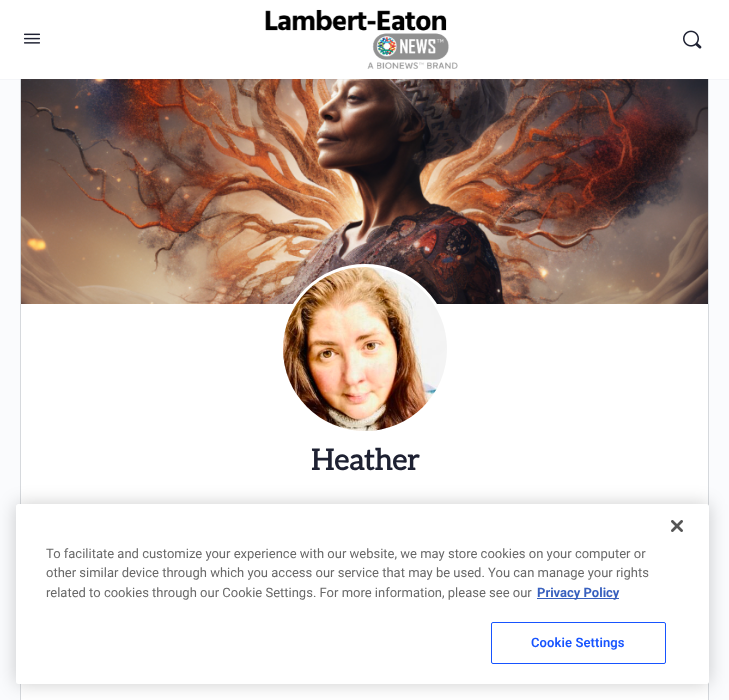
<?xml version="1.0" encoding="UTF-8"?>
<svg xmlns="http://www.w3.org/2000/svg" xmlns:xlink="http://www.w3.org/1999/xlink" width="729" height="700">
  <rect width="100%" height="100%" fill="#fafbfd" />
  <rect x="21" y="304" width="687" height="201" fill="#ffffff" />
  <rect x="20.5" y="78.5" width="688" height="490" fill="none" stroke="#d6d9dd" />
  <image x="21" y="79" width="687" height="225" xlink:href="image4.png" />
  <rect y="79" width="729" height="1" fill="#8b8d9d" fill-opacity="0.05" />
  <rect width="729" height="79" fill="#ffffff" />
  <image x="24" y="33" width="16" height="11" xlink:href="image1.png" />
  <image x="265" y="9" width="193" height="60" xlink:href="image2.png" />
  <image x="683" y="30" width="19" height="19" xlink:href="image3.png" />
  <circle cx="365" cy="349" r="83.5" fill="#ffffff" stroke="#ffffff" stroke-width="3" />
  <image x="283" y="267" width="164" height="164" xlink:href="image5.png" />
  <rect x="21" y="683" width="687" height="17" fill="#ffffff" />
  <rect x="20.5" y="646.5" width="688" height="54" fill="none" stroke="#d6d9dd" />
  <rect x="16" y="504" width="693" height="180" rx="2.5" fill="#000000" fill-opacity="0.2" filter="blur(9px)" />
  <rect x="16" y="504" width="693" height="180" rx="2.5" fill="#ffffff" />
  <image x="671" y="520" width="12" height="12" xlink:href="image6.png" />
  <rect x="537" y="598" width="82" height="1" fill="#3860be" />
  <rect x="491.5" y="622.5" width="174" height="41" rx="1.5" fill="none" stroke="#1754ff" />
  <text x="311" y="470" style="font-family: Aleo; font-size: 29px; font-weight: bold; fill: #1e2132">Heather</text>
  <text x="46" y="558" style="font-family: Roboto; font-size: 13px; fill: #696969">To facilitate and customize your experience with our website, we may store cookies on your computer or</text>
  <text x="46" y="577" style="font-family: Roboto; font-size: 13px; fill: #696969">other similar device through which you access our service that may be used. You can manage your rights</text>
  <text x="46" y="597" style="font-family: Roboto; font-size: 13px; fill: #696969">related to cookies through our Cookie Settings. For more information, please see our</text>
  <text x="537" y="597" style="font-family: Roboto; font-size: 13px; font-weight: bold; fill: #3860be">Privacy Policy</text>
  <text x="531" y="647" style="font-family: Roboto; font-size: 13px; font-weight: 600; letter-spacing: 0.1px; fill: #1754ff">Cookie Settings</text>
</svg>
